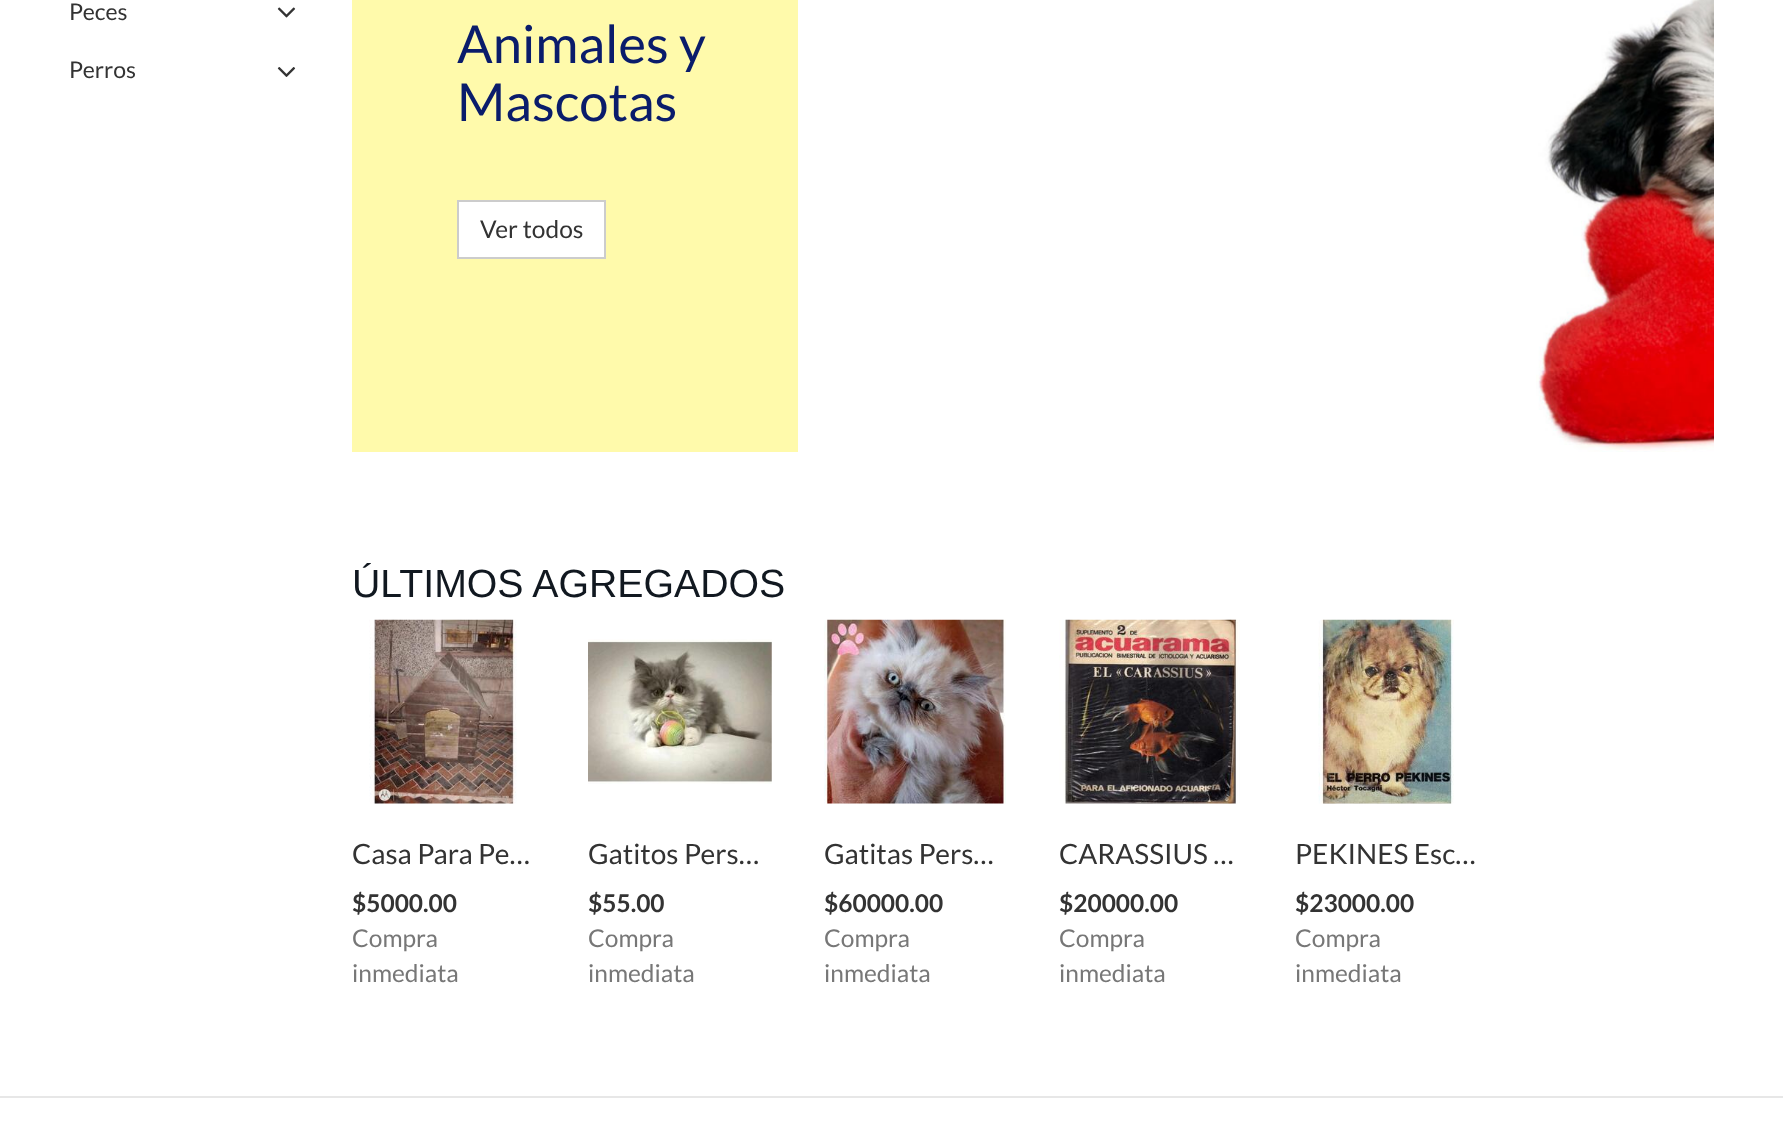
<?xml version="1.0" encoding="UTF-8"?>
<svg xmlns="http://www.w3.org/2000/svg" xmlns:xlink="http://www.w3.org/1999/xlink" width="1783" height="1125">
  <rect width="100%" height="100%" fill="#ffffff" />
  <image x="277" y="7" width="19" height="11" xlink:href="image1.png" />
  <image x="277" y="67" width="19" height="10" xlink:href="image2.png" />
  <rect x="352" width="446" height="452" fill="#fffaab" />
  <rect x="458" y="201" width="147" height="57" fill="#ffffff" stroke="#cccccc" stroke-width="2" />
  <image x="1536" y="0" width="178" height="452" xlink:href="image3.png" />
  <image x="369" y="619" width="148" height="185" xlink:href="image4.png" />
  <image x="588" y="639" width="184" height="145" xlink:href="image5.png" />
  <image x="824" y="619" width="182" height="185" xlink:href="image6.png" />
  <image x="1059" y="619" width="181" height="185" xlink:href="image7.png" />
  <image x="1318" y="619" width="136" height="185" xlink:href="image8.png" />
  <rect y="1096" width="1783" height="2" fill="#e7e7e7" />
  <text x="69" y="20" style="font-family: Lato; font-size: 23px; fill: #333333">Peces</text>
  <text x="69" y="78" style="font-family: Lato; font-size: 23px; fill: #333333">Perros</text>
  <text x="457" y="63" style="font-family: Lato; font-size: 52.5px; fill: #0a1c6b">Animales y</text>
  <text x="457" y="121" style="font-family: Lato; font-size: 52.5px; fill: #0a1c6b">Mascotas</text>
  <text x="480" y="238" style="font-family: Lato; font-size: 24.5px; fill: #333333">Ver todos</text>
  <text x="352" y="597" style="font-family: Liberation Sans; font-size: 39.25px; fill: #111820">ÚLTIMOS AGREGADOS</text>
  <text x="352" y="864" style="font-family: Lato; font-size: 28px; fill: #333333">Casa Para Pe…</text>
  <text x="352" y="912" style="font-family: Lato; font-size: 24.5px; font-weight: bold; fill: #333333">$5000.00</text>
  <text x="352" y="947" style="font-family: Lato; font-size: 24.5px; fill: #777777">Compra</text>
  <text x="352" y="982" style="font-family: Lato; font-size: 24.5px; fill: #777777">inmediata</text>
  <text x="588" y="864" style="font-family: Lato; font-size: 28px; fill: #333333">Gatitos Pers…</text>
  <text x="588" y="912" style="font-family: Lato; font-size: 24.5px; font-weight: bold; fill: #333333">$55.00</text>
  <text x="588" y="947" style="font-family: Lato; font-size: 24.5px; fill: #777777">Compra</text>
  <text x="588" y="982" style="font-family: Lato; font-size: 24.5px; fill: #777777">inmediata</text>
  <text x="824" y="864" style="font-family: Lato; font-size: 28px; fill: #333333">Gatitas Pers…</text>
  <text x="824" y="912" style="font-family: Lato; font-size: 24.5px; font-weight: bold; fill: #333333">$60000.00</text>
  <text x="824" y="947" style="font-family: Lato; font-size: 24.5px; fill: #777777">Compra</text>
  <text x="824" y="982" style="font-family: Lato; font-size: 24.5px; fill: #777777">inmediata</text>
  <text x="1059" y="864" style="font-family: Lato; font-size: 28px; fill: #333333">CARASSIUS …</text>
  <text x="1059" y="912" style="font-family: Lato; font-size: 24.5px; font-weight: bold; fill: #333333">$20000.00</text>
  <text x="1059" y="947" style="font-family: Lato; font-size: 24.5px; fill: #777777">Compra</text>
  <text x="1059" y="982" style="font-family: Lato; font-size: 24.5px; fill: #777777">inmediata</text>
  <text x="1295" y="864" style="font-family: Lato; font-size: 28px; fill: #333333">PEKINES Esc…</text>
  <text x="1295" y="912" style="font-family: Lato; font-size: 24.5px; font-weight: bold; fill: #333333">$23000.00</text>
  <text x="1295" y="947" style="font-family: Lato; font-size: 24.5px; fill: #777777">Compra</text>
  <text x="1295" y="982" style="font-family: Lato; font-size: 24.5px; fill: #777777">inmediata</text>
</svg>
